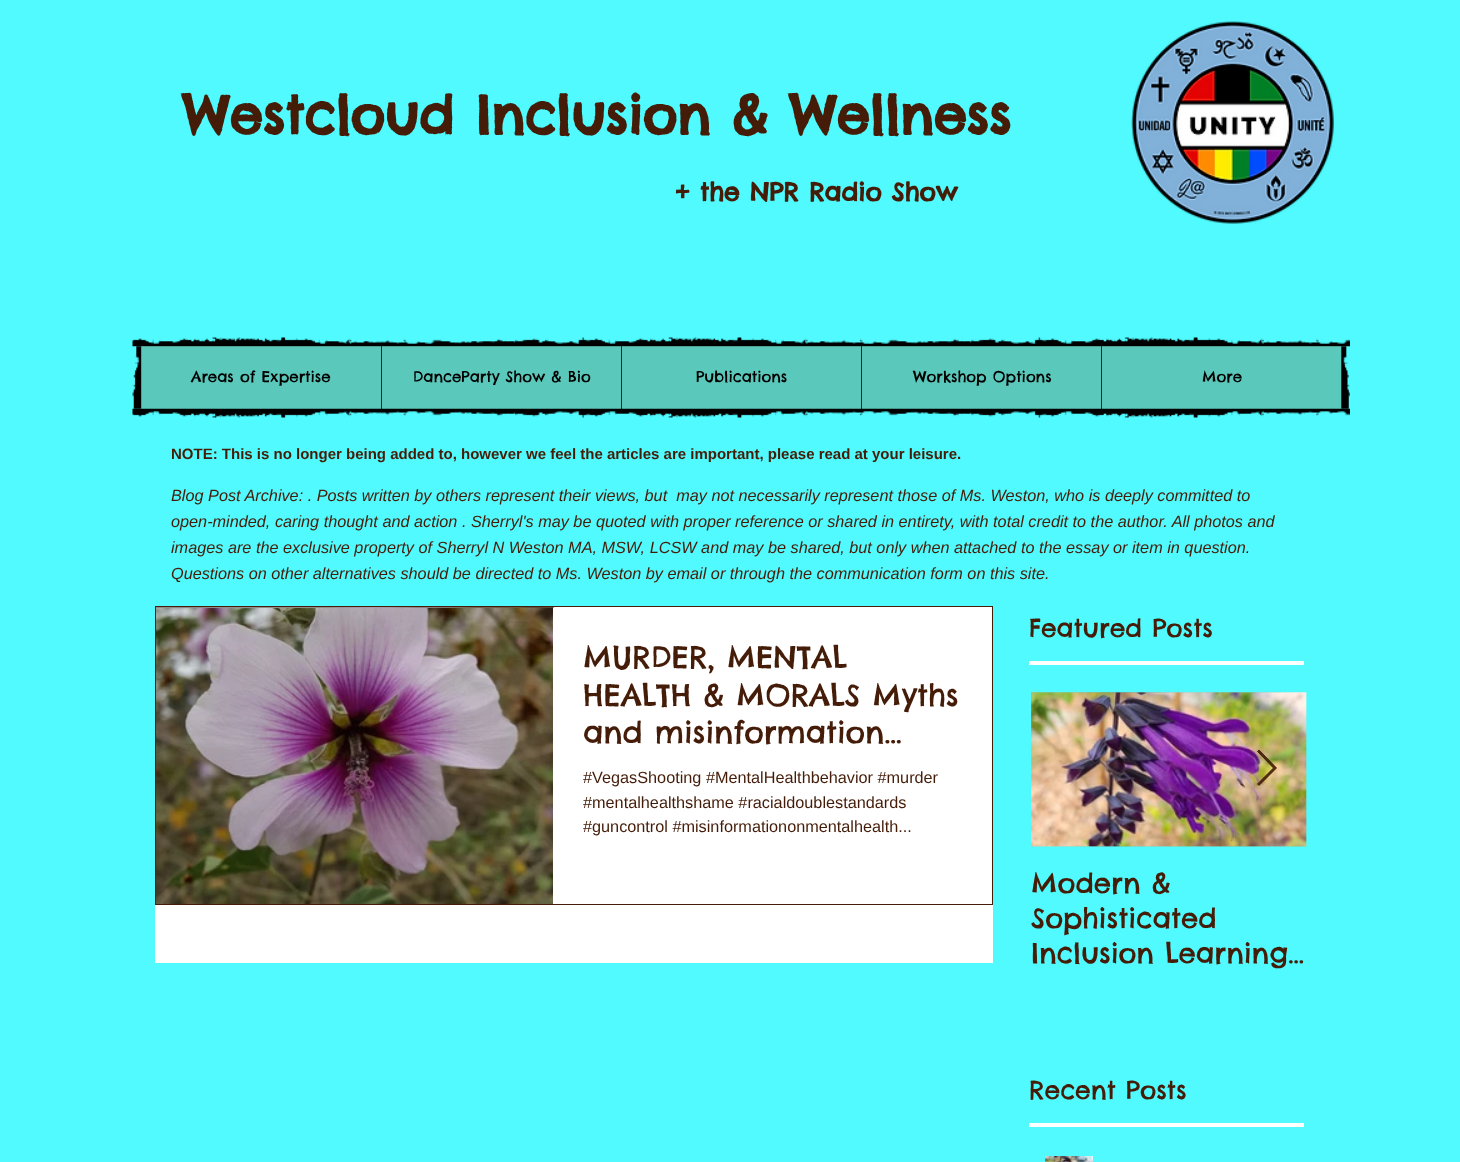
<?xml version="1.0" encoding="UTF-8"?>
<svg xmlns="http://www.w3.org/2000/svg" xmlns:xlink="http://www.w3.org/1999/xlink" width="1460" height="1162">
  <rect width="100%" height="100%" fill="#50fafe" />
  <image x="1131" y="21" width="203" height="203" xlink:href="image1.png" />
  <image x="132" y="337" width="1218" height="10" xlink:href="image2.png" />
  <image x="132" y="346" width="10" height="63" xlink:href="image3.png" />
  <rect x="141" y="346" width="1200" height="63" fill="#6d774d" fill-opacity="0.38" />
  <rect x="381" y="346" width="1" height="63" fill="#441c08" />
  <rect x="621" y="346" width="1" height="63" fill="#441c08" />
  <rect x="861" y="346" width="1" height="63" fill="#441c08" />
  <rect x="1101" y="346" width="1" height="63" fill="#441c08" />
  <image x="1341" y="346" width="9" height="63" xlink:href="image4.png" />
  <image x="132" y="408" width="1218" height="10" xlink:href="image5.png" />
  <rect x="155" y="607" width="838" height="356" fill="#ffffff" />
  <rect x="155.5" y="606.5" width="837" height="298" fill="none" stroke="#441c08" />
  <image x="156" y="607" width="398" height="1" xlink:href="image6.png" />
  <image x="156" y="608" width="397" height="296" xlink:href="image7.png" />
  <rect x="1029" y="661" width="275" height="4" fill="#ffffff" />
  <image x="1031" y="692" width="276" height="155" xlink:href="image8.png" />
  <image x="1031" y="692" width="276" height="155" xlink:href="image9.png" />
  <path d="M 1257.5 751.5 l 1.5 -1.5 l 17.5 18 l -17.5 17.5 l -1.5 -1.5 l 16 -16 z" fill="#441c08" fill-opacity="0.9" stroke="#441c08" stroke-opacity="0.9" />
  <rect x="1029" y="1123" width="275" height="4" fill="#ffffff" />
  <image x="1045" y="1156" width="48" height="6" xlink:href="image10.png" />
  <text x="182" y="134" style="font-family: Chelsea Market; font-size: 52.5px; font-weight: bold; fill: #441c08">Westcloud Inclusion &amp; Wellness</text>
  <text x="675" y="201" style="font-family: Chelsea Market; font-size: 25px; font-weight: bold; fill: #441c08">+ the NPR Radio Show</text>
  <text x="191" y="382" style="font-family: Chelsea Market; font-size: 15px; fill: #000000">Areas of Expertise</text>
  <text x="413" y="382" style="font-family: Chelsea Market; font-size: 15px; fill: #000000">DanceParty Show &amp; Bio</text>
  <text x="696" y="382" style="font-family: Chelsea Market; font-size: 15px; fill: #000000">Publications</text>
  <text x="913" y="382" style="font-family: Chelsea Market; font-size: 15px; fill: #000000">Workshop Options</text>
  <text x="1202" y="382" style="font-family: Chelsea Market; font-size: 15px; fill: #000000">More</text>
  <text x="171" y="459" style="font-family: Liberation Sans; font-size: 15px; font-weight: bold; fill: #441c08">NOTE: This is no longer being added to, however we feel the articles are important, please read at your leisure.</text>
  <text x="171" y="501" style="font-family: Liberation Sans; font-size: 16.25px; font-style: italic; fill: #441c08" xml:space="preserve">Blog Post Archive: . Posts written by others represent their views, but  may not necessarily represent those of Ms. Weston, who is deeply committed to</text>
  <text x="171" y="527" style="font-family: Liberation Sans; font-size: 16.25px; font-style: italic; fill: #441c08">open-minded, caring thought and action . Sherryl's may be quoted with proper reference or shared in entirety, with total credit to the author. All photos and</text>
  <text x="171" y="553" style="font-family: Liberation Sans; font-size: 16.25px; font-style: italic; fill: #441c08">images are the exclusive property of Sherryl N Weston MA, MSW, LCSW and may be shared, but only when attached to the essay or item in question.</text>
  <text x="171" y="579" style="font-family: Liberation Sans; font-size: 16.25px; font-style: italic; fill: #441c08">Questions on other alternatives should be directed to Ms. Weston by email or through the communication form on this site.</text>
  <text x="1029" y="637" style="font-family: Chelsea Market; font-size: 25px; fill: #441c08">Featured Posts</text>
  <text x="583" y="668" style="font-family: Chelsea Market; font-size: 30px; fill: #441c08">MURDER, MENTAL</text>
  <text x="583" y="706" style="font-family: Chelsea Market; font-size: 30px; fill: #441c08">HEALTH &amp; MORALS Myths</text>
  <text x="583" y="743" style="font-family: Chelsea Market; font-size: 30px; fill: #441c08">and misinformation…</text>
  <text x="583" y="783" style="font-family: Liberation Sans; font-size: 16.25px; fill: #441c08">#VegasShooting #MentalHealthbehavior #murder</text>
  <text x="583" y="808" style="font-family: Liberation Sans; font-size: 16.25px; fill: #441c08">#mentalhealthshame #racialdoublestandards</text>
  <text x="583" y="832" style="font-family: Liberation Sans; font-size: 16.25px; fill: #441c08">#guncontrol #misinformationonmentalhealth...</text>
  <text x="1031" y="893" style="font-family: Chelsea Market; font-size: 27.5px; fill: #441c08">Modern &amp;</text>
  <text x="1031" y="928" style="font-family: Chelsea Market; font-size: 27.5px; fill: #441c08">Sophisticated</text>
  <text x="1031" y="963" style="font-family: Chelsea Market; font-size: 27.5px; fill: #441c08">Inclusion Learning…</text>
  <text x="1029" y="1099" style="font-family: Chelsea Market; font-size: 25px; fill: #441c08">Recent Posts</text>
</svg>
